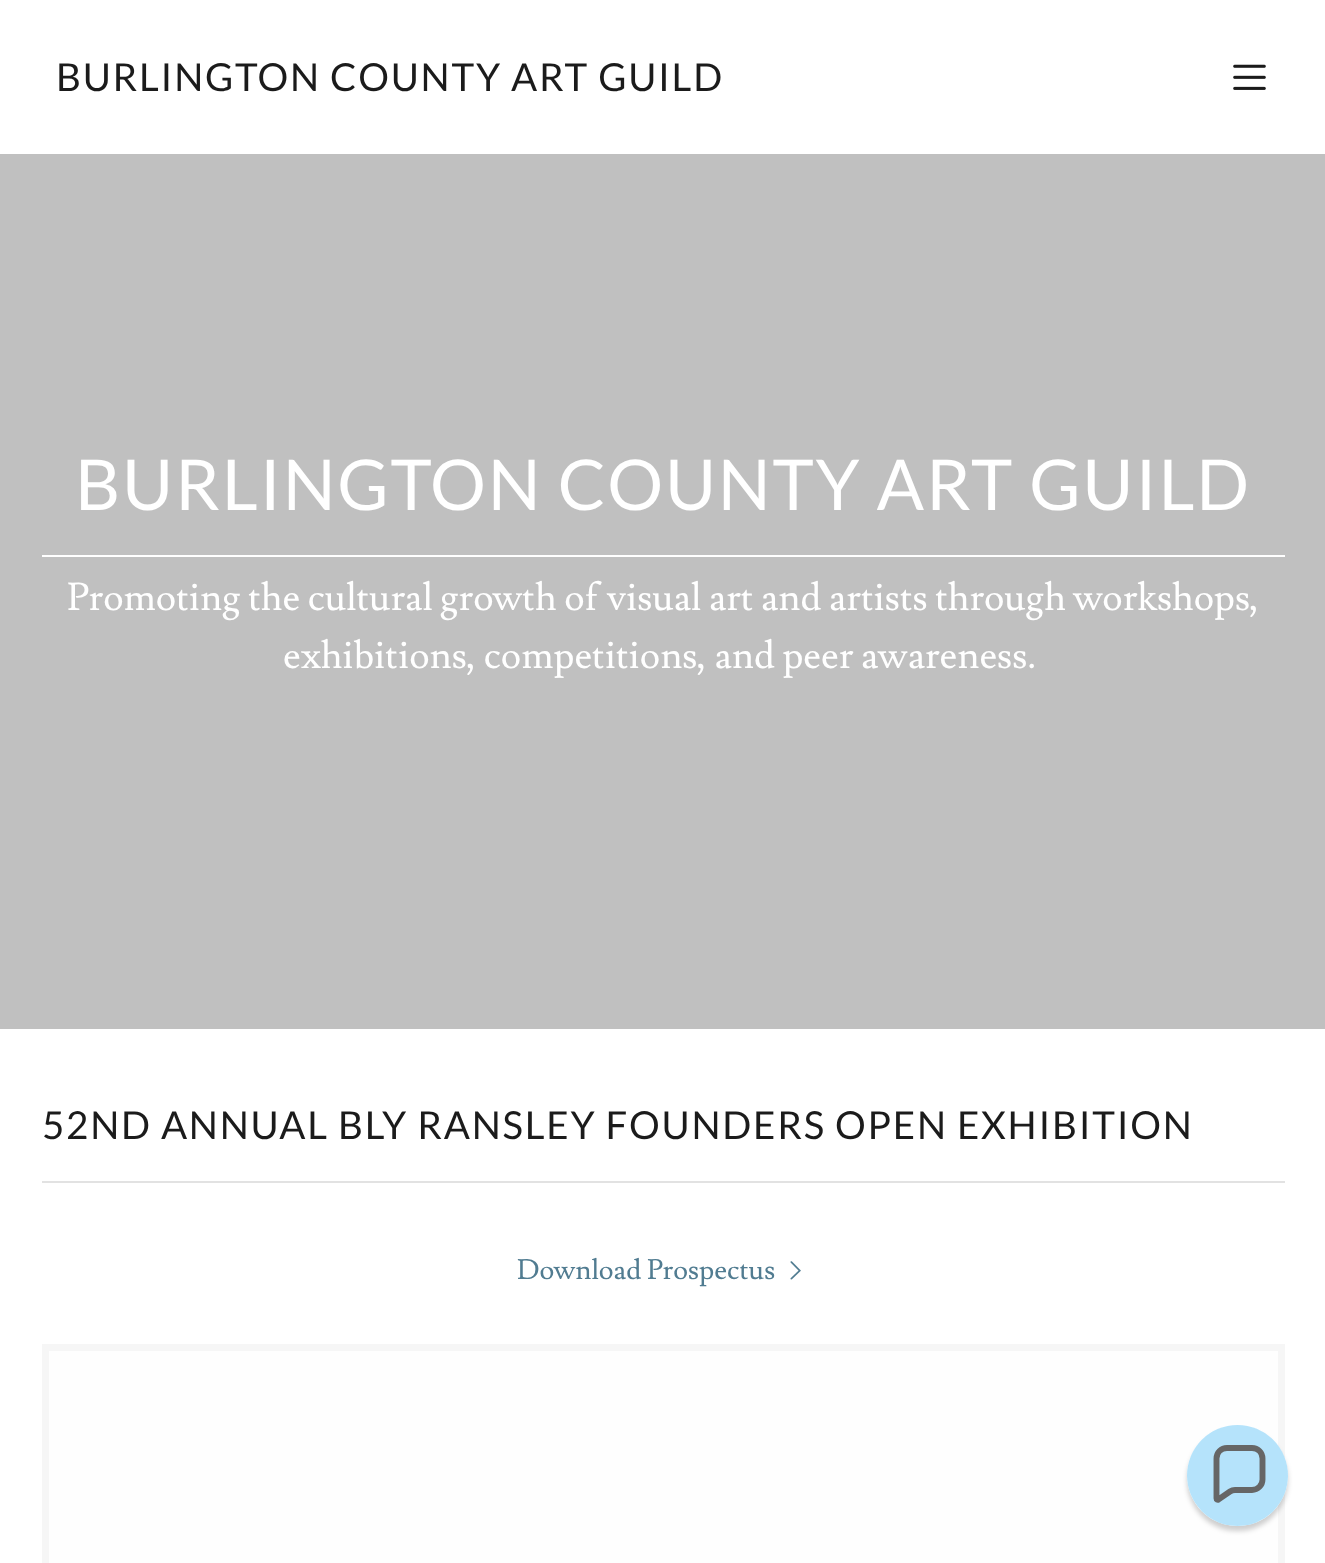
<?xml version="1.0" encoding="UTF-8"?>
<svg xmlns="http://www.w3.org/2000/svg" xmlns:xlink="http://www.w3.org/1999/xlink" width="1325" height="1563">
  <defs>
    <clipPath id="clip1"><path d="M 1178 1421 h 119 v 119 h -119 z m 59.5 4 c 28 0 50.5 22.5 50.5 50.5 c 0 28 -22.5 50.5 -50.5 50.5 c -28 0 -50.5 -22.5 -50.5 -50.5 c 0 -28 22.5 -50.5 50.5 -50.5 z" clip-rule="evenodd" /></clipPath>
  </defs>
  <rect width="100%" height="100%" fill="#ffffff" />
  <image x="1233" y="64" width="33" height="26" xlink:href="image1.png" />
  <rect y="154" width="1325" height="875" fill="#c0c0c0" />
  <rect x="42" y="555" width="1243" height="2" fill="#ffffff" />
  <rect x="42" y="1181" width="1243" height="2" fill="#e2e2e2" />
  <image x="790" y="1261" width="11" height="19" xlink:href="image2.png" />
  <rect x="42" y="1344" width="1243" height="219" fill="#f6f6f6" />
  <rect x="49" y="1351" width="1229" height="212" fill="#fefefe" />
  <g clip-path="url(#clip1)">
    <rect x="1187" y="1430" width="101" height="101" rx="50.5" fill="#000000" fill-opacity="0.19" filter="blur(2.5px)" />
  </g>
  <circle cx="1237.5" cy="1475.5" r="50.5" fill="#b1e2fb" fill-opacity="0.95" />
  <path d="M 1252 1448 h -25 c -6 0 -10.5 4.5 -10.5 10.5 v 40 c 0 1 1 1.5 2 1 l 11.5 -8 c 1.5 -1 3 -1.5 5 -1.5 h 17 c 6 0 10.5 -5 10.5 -10.5 v -21 c 0 -6 -4.5 -10.5 -10.5 -10.5 z" fill="none" stroke="#666666" stroke-width="5.9" />
  <text x="56" y="91" style="font-family: Lato; font-size: 38.5px; letter-spacing: 1.75px; fill: #1b1b1b">BURLINGTON COUNTY ART GUILD</text>
  <text x="75" y="510" style="font-family: Lato; font-size: 70px; letter-spacing: 1.75px; fill: #ffffff">BURLINGTON COUNTY ART GUILD</text>
  <text x="67" y="610" style="font-family: Lusitana; font-size: 38.5px; fill: #ffffff">Promoting the cultural growth of visual art and artists through workshops,</text>
  <text x="283" y="668" style="font-family: Lusitana; font-size: 38.5px; fill: #ffffff">exhibitions, competitions, and peer awareness.</text>
  <text x="42" y="1139" style="font-family: Lato; font-size: 38.5px; letter-spacing: 1.75px; fill: #1b1b1b">52ND ANNUAL BLY RANSLEY FOUNDERS OPEN EXHIBITION</text>
  <text x="517" y="1279" style="font-family: Lusitana; font-size: 28px; fill: #517c91">Download Prospectus</text>
</svg>
